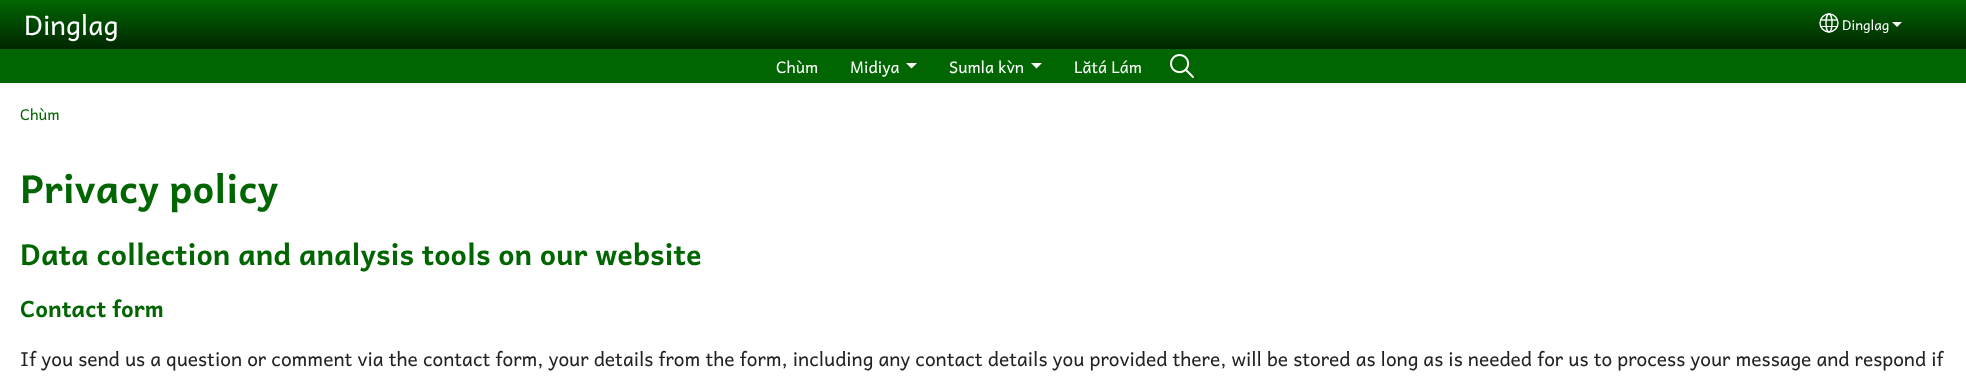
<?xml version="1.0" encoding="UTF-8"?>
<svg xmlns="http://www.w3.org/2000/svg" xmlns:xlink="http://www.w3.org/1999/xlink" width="1966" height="391">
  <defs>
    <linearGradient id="g1" gradientUnits="userSpaceOnUse" x1="983" y1="0" x2="983" y2="49"><stop offset="0" stop-color="#016601" /><stop offset="1" stop-color="#012601" /></linearGradient>
  </defs>
  <rect width="100%" height="100%" fill="#ffffff" />
  <rect width="1966" height="49" fill="url(#g1)" />
  <circle cx="1829" cy="23" r="9" fill="none" stroke="#feffff" stroke-width="1.4" />
  <ellipse cx="1829" cy="23" rx="3" ry="9" fill="none" stroke="#feffff" stroke-width="1.4" />
  <path d="M 1820 20 h 17.5" fill="none" stroke="#feffff" stroke-width="1.4" />
  <rect x="1820" y="26" width="18" height="1" fill="#feffff" />
  <path d="M 1892 22 h 10 l -5 5 z" fill="#feffff" />
  <rect y="49" width="1966" height="34" fill="#016601" />
  <path d="M 906 63 h 11 l -5.5 5.5 z" fill="#fefefe" />
  <path d="M 1031 63 h 11 l -5.5 5.5 z" fill="#fefefe" />
  <image x="1170" y="54" width="24" height="24" xlink:href="image1.png" />
  <text x="24" y="35" style="font-family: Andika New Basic; font-size: 27px; fill: #feffff">Dinglag</text>
  <text x="1842" y="30" style="font-family: Andika New Basic; font-size: 13.5px; fill: #feffff">Dinglag</text>
  <text x="776" y="73" style="font-family: Andika New Basic; font-size: 16px; fill: #feffff">Chùm</text>
  <text x="850" y="73" style="font-family: Andika New Basic; font-size: 16px; fill: #feffff">Midiya</text>
  <text x="949" y="73" style="font-family: Andika New Basic; font-size: 16px; fill: #feffff">Sumla kv̀n</text>
  <text x="1074" y="73" style="font-family: Andika New Basic; font-size: 16px; fill: #feffff">Lătá Lám</text>
  <text x="20" y="120" style="font-family: Andika New Basic; font-size: 15px; fill: #016601">Chùm</text>
  <text x="20" y="203" style="font-family: Andika New Basic; font-size: 38.5px; font-weight: bold; fill: #016601">Privacy policy</text>
  <text x="20" y="265" style="font-family: Andika New Basic; font-size: 28.8px; font-weight: bold; fill: #016601">Data collection and analysis tools on our website</text>
  <text x="20" y="317" style="font-family: Andika New Basic; font-size: 22.5px; font-weight: bold; fill: #016601">Contact form</text>
  <text x="20" y="366" style="font-family: Andika New Basic; font-size: 19.2px; fill: #222222">If you send us a question or comment via the contact form, your details from the form, including any contact details you provided there, will be stored as long as is needed for us to process your message and respond if</text>
</svg>
